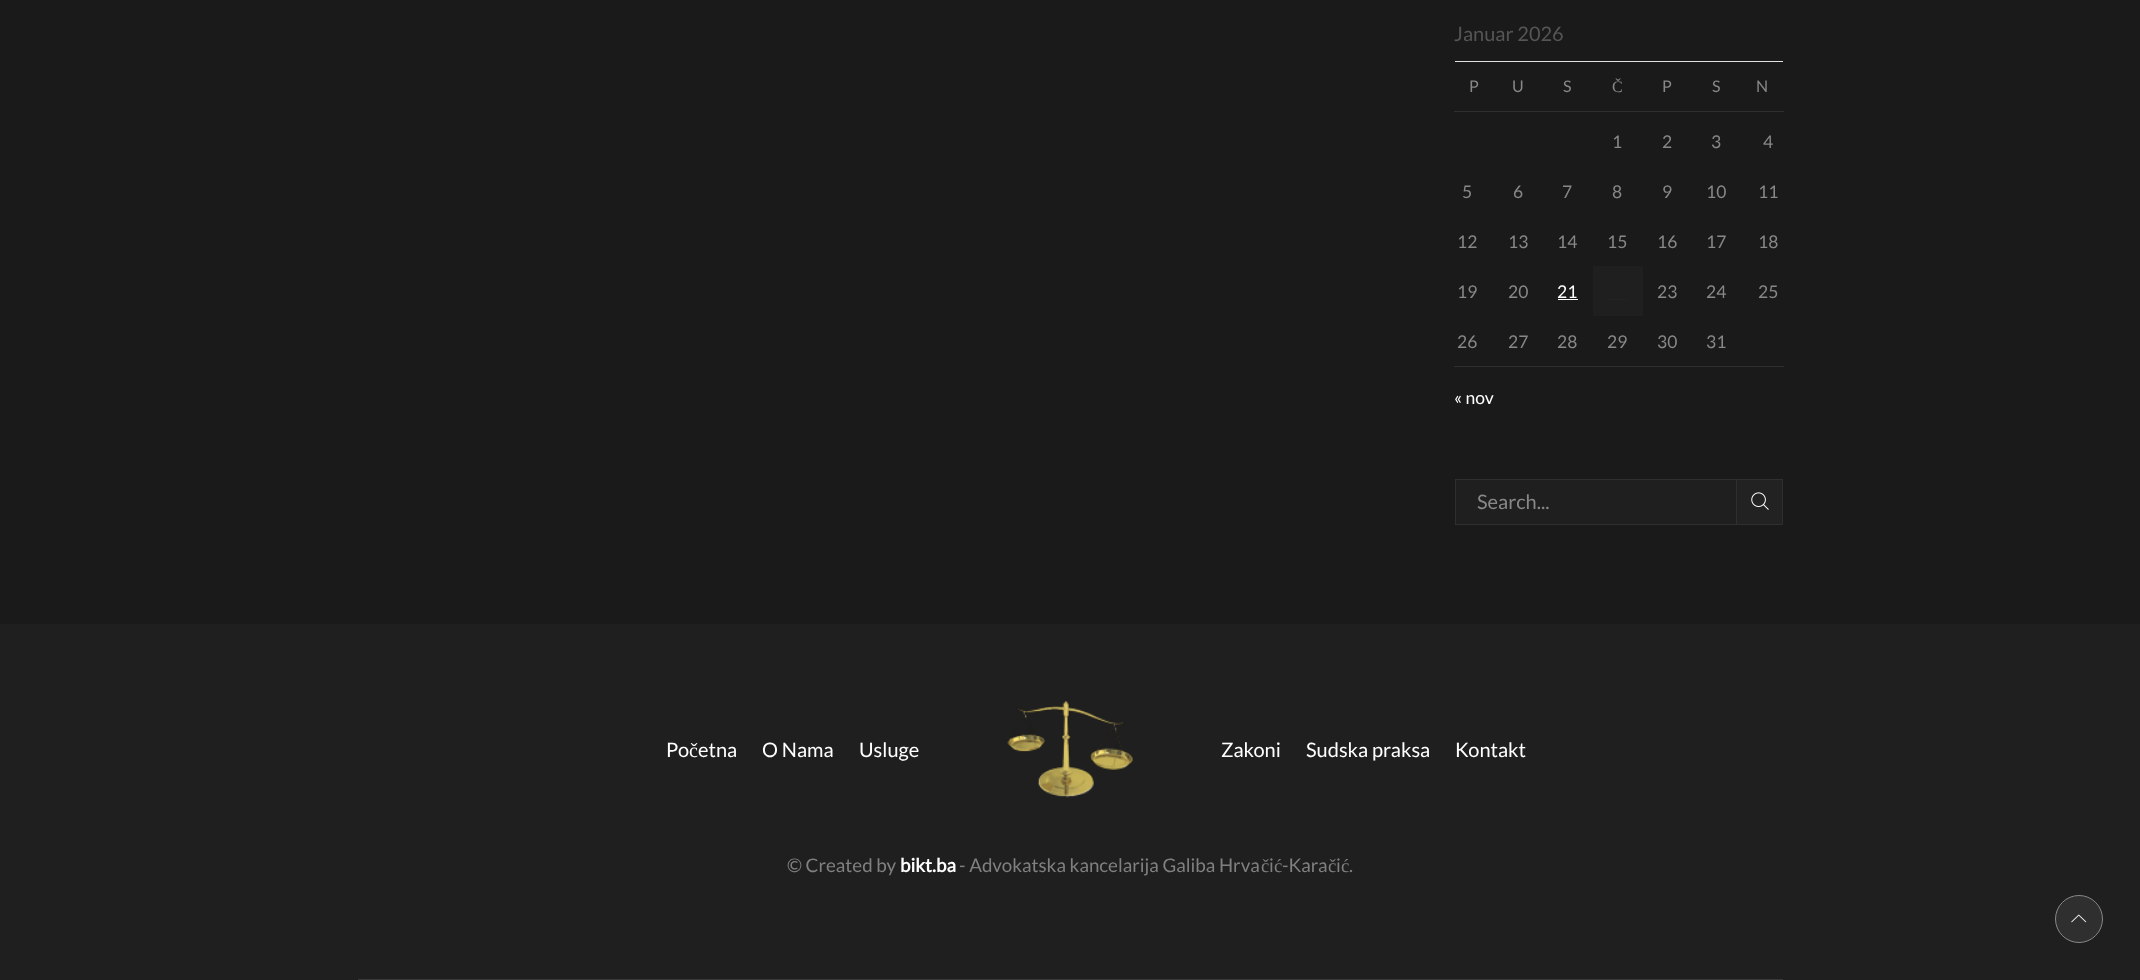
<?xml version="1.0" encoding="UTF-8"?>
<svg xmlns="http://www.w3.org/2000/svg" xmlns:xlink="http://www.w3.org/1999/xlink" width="2140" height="980">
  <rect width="100%" height="100%" fill="#1a1a1a" />
  <rect x="1455" y="61" width="328" height="1" fill="#e1e1e1" />
  <rect x="1454" y="111" width="330" height="1" fill="#2f2f2f" />
  <rect x="1558" y="299" width="20" height="1" fill="#ffffff" />
  <rect x="1593" y="266" width="50" height="50" fill="#1f1f1f" />
  <rect x="1608" y="299" width="20" height="1" fill="#222222" />
  <rect x="1454" y="366" width="330" height="1" fill="#2f2f2f" />
  <rect x="1456" y="480" width="280" height="44" fill="#1f1f1f" />
  <rect x="1455.5" y="479.5" width="327" height="45" fill="none" stroke="#2f2f2f" />
  <rect x="1736.5" y="479.5" width="46" height="45" fill="#222222" stroke="#2f2f2f" />
  <image x="1751" y="492" width="18" height="18" xlink:href="image1.png" />
  <rect y="624" width="2140" height="356" fill="#1f1f1f" />
  <image x="1007" y="700" width="126" height="98" xlink:href="image2.png" />
  <rect x="358" y="979" width="1425" height="1" fill="#393939" />
  <circle cx="2079" cy="919" r="23.5" fill="#2f2f2f" stroke="#888888" />
  <image x="2071" y="914" width="16" height="9" xlink:href="image3.png" />
  <text x="1454" y="41" style="font-family: Lato; font-size: 20px; fill: #555555">Januar 2026</text>
  <text x="1469" y="92" style="font-family: Lato; font-size: 16px; fill: #888888">P</text>
  <text x="1512" y="92" style="font-family: Lato; font-size: 16px; fill: #888888">U</text>
  <text x="1563" y="92" style="font-family: Lato; font-size: 16px; fill: #888888">S</text>
  <text x="1612" y="92" style="font-family: Liberation Serif; font-size: 16px; fill: #888888">Č</text>
  <text x="1662" y="92" style="font-family: Lato; font-size: 16px; fill: #888888">P</text>
  <text x="1712" y="92" style="font-family: Lato; font-size: 16px; fill: #888888">S</text>
  <text x="1756" y="92" style="font-family: Lato; font-size: 16px; fill: #888888">N</text>
  <text x="1612" y="148" style="font-family: Lato; font-size: 17.5px; fill: #888888">1</text>
  <text x="1662" y="148" style="font-family: Lato; font-size: 17.5px; fill: #888888">2</text>
  <text x="1711" y="148" style="font-family: Lato; font-size: 17.5px; fill: #888888">3</text>
  <text x="1763" y="148" style="font-family: Lato; font-size: 17.5px; fill: #888888">4</text>
  <text x="1462" y="198" style="font-family: Lato; font-size: 17.5px; fill: #888888">5</text>
  <text x="1513" y="198" style="font-family: Lato; font-size: 17.5px; fill: #888888">6</text>
  <text x="1562" y="198" style="font-family: Lato; font-size: 17.5px; fill: #888888">7</text>
  <text x="1612" y="198" style="font-family: Lato; font-size: 17.5px; fill: #888888">8</text>
  <text x="1662" y="198" style="font-family: Lato; font-size: 17.5px; fill: #888888">9</text>
  <text x="1706" y="198" style="font-family: Lato; font-size: 17.5px; fill: #888888">10</text>
  <text x="1758" y="198" style="font-family: Lato; font-size: 17.5px; fill: #888888">11</text>
  <text x="1457" y="248" style="font-family: Lato; font-size: 17.5px; fill: #888888">12</text>
  <text x="1508" y="248" style="font-family: Lato; font-size: 17.5px; fill: #888888">13</text>
  <text x="1557" y="248" style="font-family: Lato; font-size: 17.5px; fill: #888888">14</text>
  <text x="1607" y="248" style="font-family: Lato; font-size: 17.5px; fill: #888888">15</text>
  <text x="1657" y="248" style="font-family: Lato; font-size: 17.5px; fill: #888888">16</text>
  <text x="1706" y="248" style="font-family: Lato; font-size: 17.5px; fill: #888888">17</text>
  <text x="1758" y="248" style="font-family: Lato; font-size: 17.5px; fill: #888888">18</text>
  <text x="1457" y="298" style="font-family: Lato; font-size: 17.5px; fill: #888888">19</text>
  <text x="1508" y="298" style="font-family: Lato; font-size: 17.5px; fill: #888888">20</text>
  <text x="1557" y="298" style="font-family: Lato; font-size: 17.5px; fill: #ffffff">21</text>
  <text x="1657" y="298" style="font-family: Lato; font-size: 17.5px; fill: #888888">23</text>
  <text x="1706" y="298" style="font-family: Lato; font-size: 17.5px; fill: #888888">24</text>
  <text x="1758" y="298" style="font-family: Lato; font-size: 17.5px; fill: #888888">25</text>
  <text x="1457" y="348" style="font-family: Lato; font-size: 17.5px; fill: #888888">26</text>
  <text x="1508" y="348" style="font-family: Lato; font-size: 17.5px; fill: #888888">27</text>
  <text x="1557" y="348" style="font-family: Lato; font-size: 17.5px; fill: #888888">28</text>
  <text x="1607" y="348" style="font-family: Lato; font-size: 17.5px; fill: #888888">29</text>
  <text x="1657" y="348" style="font-family: Lato; font-size: 17.5px; fill: #888888">30</text>
  <text x="1706" y="348" style="font-family: Lato; font-size: 17.5px; fill: #888888">31</text>
  <text x="1454" y="404" style="font-family: Lato; font-size: 17.5px; fill: #ffffff">« nov</text>
  <text x="1477" y="509" style="font-family: Lato; font-size: 20px; fill: #888888">Search...</text>
  <text x="666" y="757" style="font-family: Lato; font-size: 20px; fill: #ffffff">Po</text>
  <text x="689" y="757" style="font-family: Liberation Serif; font-size: 20px; fill: #ffffff">č</text>
  <text x="698" y="757" style="font-family: Lato; font-size: 20px; fill: #ffffff">etna</text>
  <text x="762" y="757" style="font-family: Lato; font-size: 20px; fill: #ffffff">O Nama</text>
  <text x="859" y="757" style="font-family: Lato; font-size: 20px; fill: #ffffff">Usluge</text>
  <text x="1221" y="757" style="font-family: Lato; font-size: 20px; fill: #ffffff">Zakoni</text>
  <text x="1306" y="757" style="font-family: Lato; font-size: 20px; fill: #ffffff">Sudska praksa</text>
  <text x="1455" y="757" style="font-family: Lato; font-size: 20px; fill: #ffffff">Kontakt</text>
  <text x="787" y="872" style="font-family: Lato; font-size: 18.75px; fill: #808080">© Created by</text>
  <text x="900" y="872" style="font-family: Lato; font-size: 18.75px; font-weight: bold; fill: #ffffff">bikt.ba</text>
  <text x="959" y="872" style="font-family: Lato; font-size: 18.75px; fill: #808080">- Advokatska kancelarija Galiba Hrva</text>
  <text x="1261" y="872" style="font-family: Liberation Serif; font-size: 18.75px; fill: #808080">č ć</text>
  <text x="1269" y="872" style="font-family: Lato; font-size: 18.75px; fill: #808080">i</text>
  <text x="1282" y="872" style="font-family: Lato; font-size: 18.75px; fill: #808080">-Kara</text>
  <text x="1328" y="872" style="font-family: Liberation Serif; font-size: 18.75px; fill: #808080">č ć</text>
  <text x="1336" y="872" style="font-family: Lato; font-size: 18.75px; fill: #808080">i</text>
  <text x="1349" y="872" style="font-family: Lato; font-size: 18.75px; fill: #808080">.</text>
</svg>
